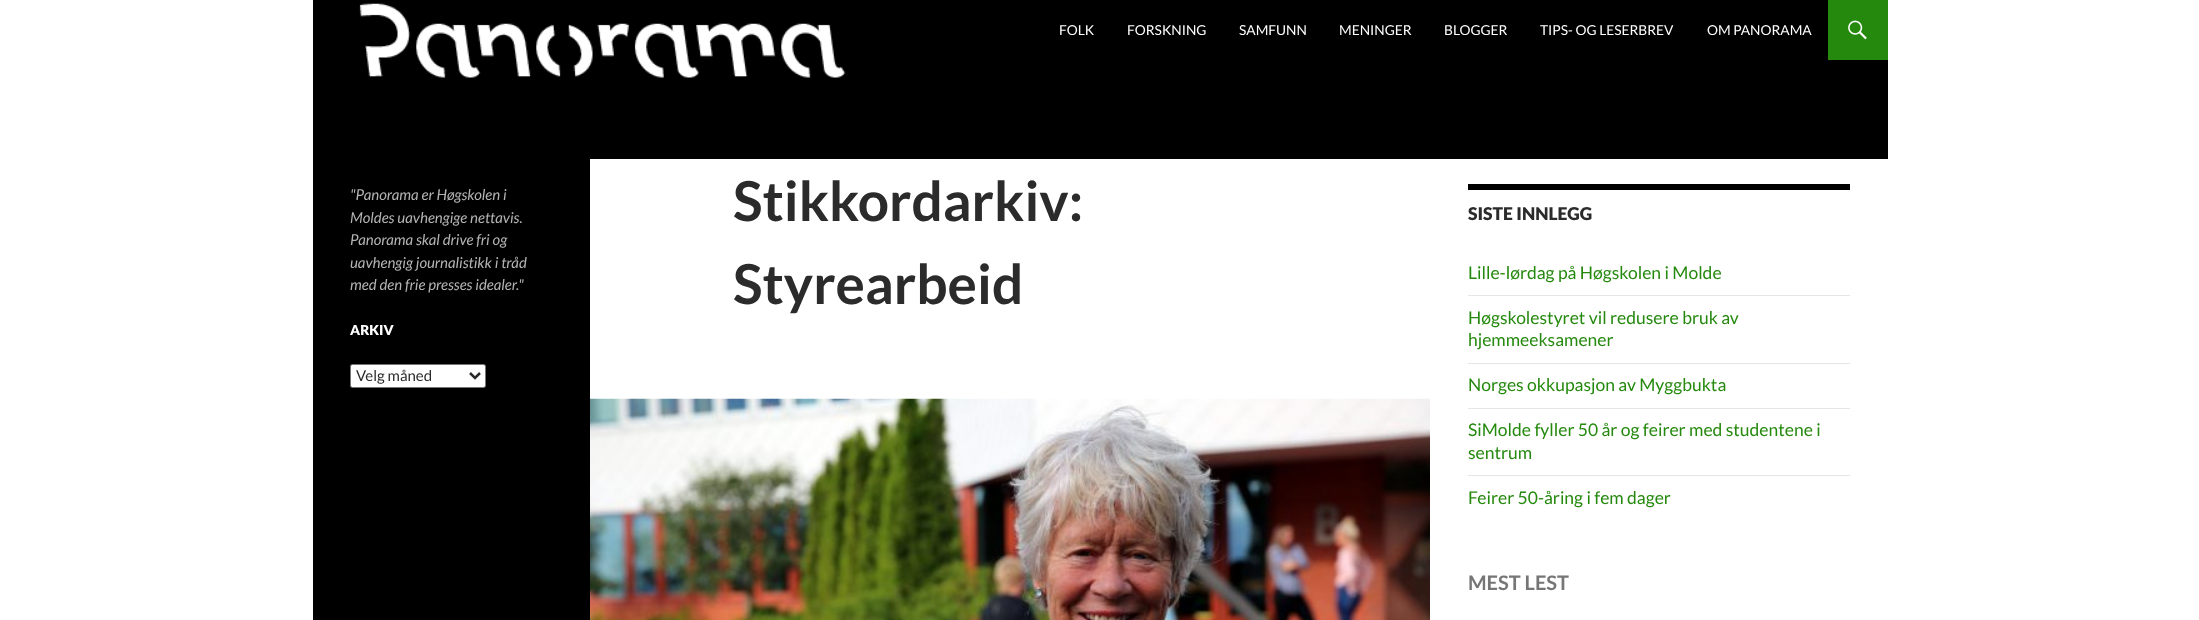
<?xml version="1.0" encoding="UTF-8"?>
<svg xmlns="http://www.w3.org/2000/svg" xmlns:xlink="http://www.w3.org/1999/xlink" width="2199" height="620">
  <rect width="100%" height="100%" fill="#ffffff" />
  <rect x="313" width="1575" height="159" fill="#000000" />
  <image x="359" y="3" width="487" height="75" xlink:href="image1.png" />
  <rect x="1828" width="60" height="60" fill="#24890d" />
  <image x="1848" y="20" width="19" height="20" xlink:href="image2.png" />
  <rect x="313" y="159" width="277" height="461" fill="#000000" />
  <rect x="350.5" y="364.5" width="135" height="23" rx="2" fill="#ffffff" stroke="#767676" />
  <path d="M 470 373 l 5 5 l 5 -5" fill="none" stroke="#2b2b2b" stroke-width="2.5" />
  <image x="590" y="398" width="840" height="222" xlink:href="image3.png" />
  <rect x="1468" y="184" width="382" height="6" fill="#000000" />
  <rect x="1468" y="295" width="382" height="1" fill="#e6e6e6" />
  <rect x="1468" y="363" width="382" height="1" fill="#e6e6e6" />
  <rect x="1468" y="408" width="382" height="1" fill="#e6e6e6" />
  <rect x="1468" y="475" width="382" height="1" fill="#e6e6e6" />
  <text x="1059" y="35" style="font-family: Lato; font-size: 13.75px; fill: #ffffff">FOLK</text>
  <text x="1127" y="35" style="font-family: Lato; font-size: 13.75px; fill: #ffffff">FORSKNING</text>
  <text x="1239" y="35" style="font-family: Lato; font-size: 13.75px; fill: #ffffff">SAMFUNN</text>
  <text x="1339" y="35" style="font-family: Lato; font-size: 13.75px; fill: #ffffff">MENINGER</text>
  <text x="1444" y="35" style="font-family: Lato; font-size: 13.75px; fill: #ffffff">BLOGGER</text>
  <text x="1540" y="35" style="font-family: Lato; font-size: 13.75px; fill: #ffffff">TIPS- OG LESERBREV</text>
  <text x="1707" y="35" style="font-family: Lato; font-size: 13.75px; fill: #ffffff">OM PANORAMA</text>
  <text x="350" y="200" style="font-family: Lato; font-size: 15px; font-style: italic; fill: #b3b3b3">"Panorama er Høgskolen i</text>
  <text x="350" y="223" style="font-family: Lato; font-size: 15px; font-style: italic; fill: #b3b3b3">Moldes uavhengige nettavis.</text>
  <text x="350" y="245" style="font-family: Lato; font-size: 15px; font-style: italic; fill: #b3b3b3">Panorama skal drive fri og</text>
  <text x="350" y="268" style="font-family: Lato; font-size: 15px; font-style: italic; fill: #b3b3b3">uavhengig journalistikk i tråd</text>
  <text x="350" y="290" style="font-family: Lato; font-size: 15px; font-style: italic; fill: #b3b3b3">med den frie presses idealer."</text>
  <text x="350" y="335" style="font-family: Lato; font-size: 13.75px; font-weight: 900; fill: #ffffff">ARKIV</text>
  <text x="356" y="381" style="font-family: Lato; font-size: 15px; fill: #2b2b2b">Velg måned</text>
  <text x="733" y="221" style="font-family: Lato; font-size: 55px; font-weight: bold; fill: #2b2b2b">Stikkordarkiv:</text>
  <text x="733" y="304" style="font-family: Lato; font-size: 55px; font-weight: bold; fill: #2b2b2b">Styrearbeid</text>
  <text x="1468" y="220" style="font-family: Lato; font-size: 17.5px; font-weight: 900; fill: #2b2b2b">SISTE INNLEGG</text>
  <text x="1468" y="279" style="font-family: Lato; font-size: 17.5px; fill: #24890d">Lille-lørdag på Høgskolen i Molde</text>
  <text x="1468" y="324" style="font-family: Lato; font-size: 17.5px; fill: #24890d">Høgskolestyret vil redusere bruk av</text>
  <text x="1468" y="346" style="font-family: Lato; font-size: 17.5px; fill: #24890d">hjemmeeksamener</text>
  <text x="1468" y="391" style="font-family: Lato; font-size: 17.5px; fill: #24890d">Norges okkupasjon av Myggbukta</text>
  <text x="1468" y="436" style="font-family: Lato; font-size: 17.5px; fill: #24890d">SiMolde fyller 50 år og feirer med studentene i</text>
  <text x="1468" y="459" style="font-family: Lato; font-size: 17.5px; fill: #24890d">sentrum</text>
  <text x="1468" y="504" style="font-family: Lato; font-size: 17.5px; fill: #24890d">Feirer 50-åring i fem dager</text>
  <text x="1468" y="590" style="font-family: Lato; font-size: 20px; font-weight: bold; fill: #767676">MEST LEST</text>
</svg>
